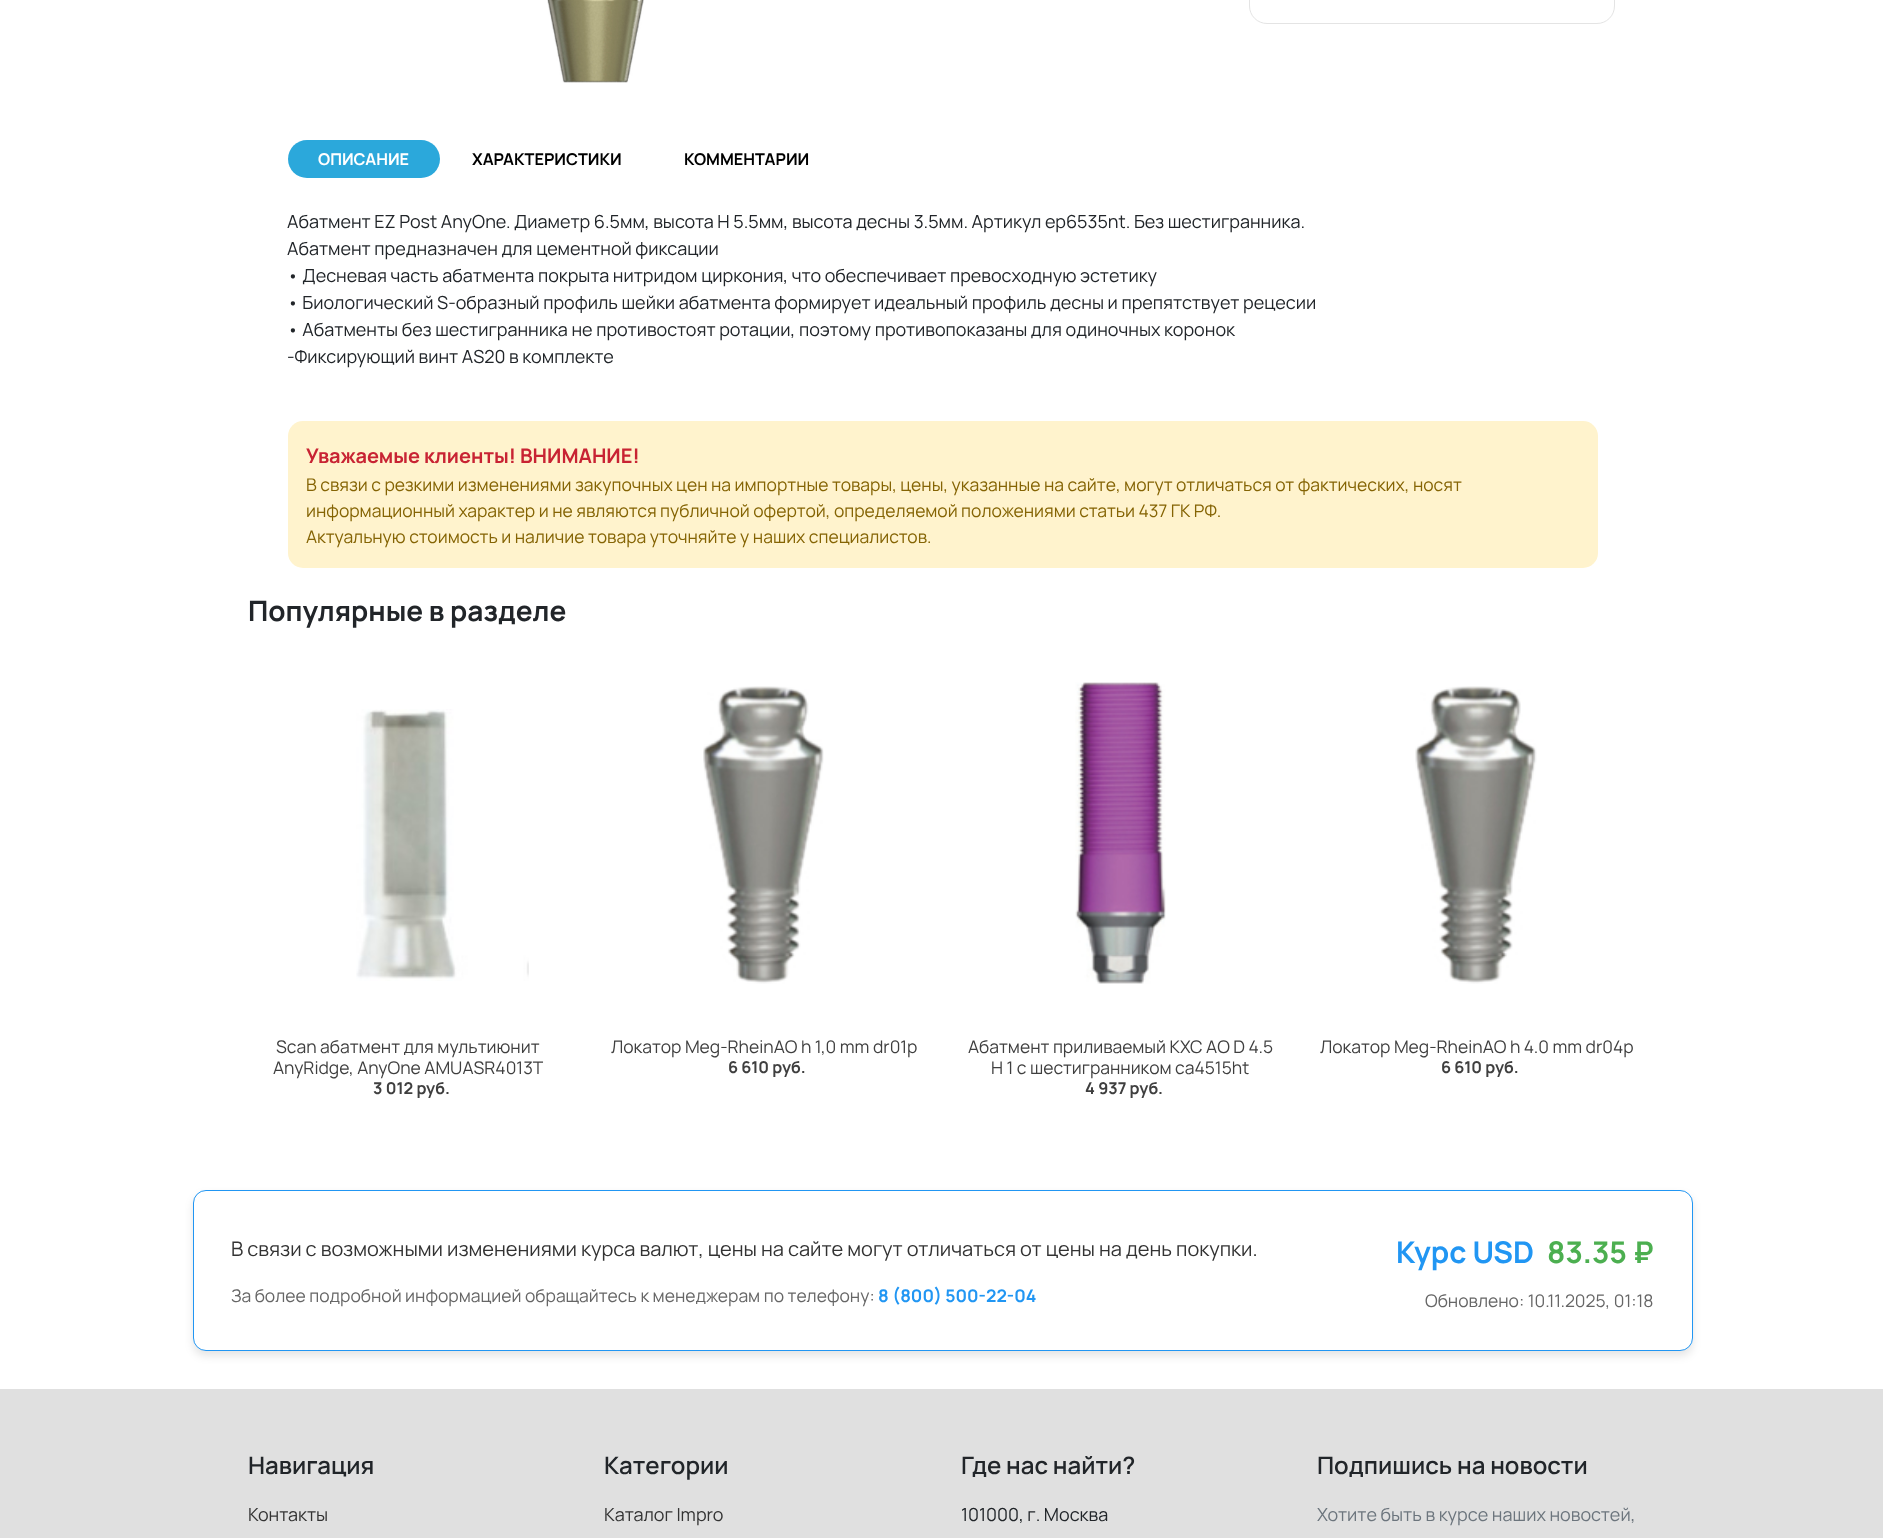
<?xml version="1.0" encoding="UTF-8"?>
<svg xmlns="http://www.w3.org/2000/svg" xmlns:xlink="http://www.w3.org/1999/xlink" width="1883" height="1538">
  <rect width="100%" height="100%" fill="#ffffff" />
  <image x="547" y="0" width="97" height="83" xlink:href="image1.png" />
  <rect x="1249.5" y="-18.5" width="365" height="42" rx="17.5" fill="none" stroke="#e4e4e4" />
  <rect x="288" y="140" width="152" height="38" rx="19" fill="#2ba8db" />
  <rect x="288" y="421" width="1310" height="147" rx="15" fill="#fff3cd" />
  <image x="356" y="709" width="173" height="272" xlink:href="image2.png" />
  <image x="703" y="686" width="121" height="298" xlink:href="image3.png" />
  <image x="1075" y="682" width="91" height="302" xlink:href="image4.png" />
  <image x="1415" y="686" width="122" height="298" xlink:href="image5.png" />
  <rect x="193" y="1195" width="1500" height="161" rx="13" fill="#000000" fill-opacity="0.1" filter="blur(4px)" />
  <rect x="193.5" y="1190.5" width="1499" height="160" rx="12.5" fill="#ffffff" stroke="#2196f3" />
  <rect y="1389" width="1883" height="149" fill="#e0e0e0" />
  <text x="318" y="165" style="font-family: Manrope; font-size: 16.25px; font-weight: bold; fill: #ffffff">ОПИСАНИЕ</text>
  <text x="472" y="165" style="font-family: Manrope; font-size: 16.25px; font-weight: bold; fill: #000000">ХАРАКТЕРИСТИКИ</text>
  <text x="684" y="165" style="font-family: Manrope; font-size: 16.25px; font-weight: bold; fill: #000000">КОММЕНТАРИИ</text>
  <text x="287" y="228" style="font-family: Manrope; font-size: 18px; fill: #212529">Абатмент EZ Post AnyOne. Диаметр 6.5мм, высота H 5.5мм, высота десны 3.5мм. Артикул ep6535nt. Без шестигранника.</text>
  <text x="287" y="255" style="font-family: Manrope; font-size: 18px; fill: #212529">Абатмент предназначен для цементной фиксации</text>
  <text x="287" y="282" style="font-family: Manrope; font-size: 18px; fill: #212529">• Десневая часть абатмента покрыта нитридом циркония, что обеспечивает превосходную эстетику</text>
  <text x="287" y="309" style="font-family: Manrope; font-size: 18px; fill: #212529">• Биологический S-образный профиль шейки абатмента формирует идеальный профиль десны и препятствует рецесии</text>
  <text x="287" y="336" style="font-family: Manrope; font-size: 18px; fill: #212529">• Абатменты без шестигранника не противостоят ротации, поэтому противопоказаны для одиночных коронок</text>
  <text x="287" y="363" style="font-family: Manrope; font-size: 18px; fill: #212529">-Фиксирующий винт AS20 в комплекте</text>
  <text x="306" y="463" style="font-family: Manrope; font-size: 20px; font-weight: bold; fill: #c82333">Уважаемые клиенты! ВНИМАНИЕ!</text>
  <text x="306" y="491" style="font-family: Manrope; font-size: 17.5px; fill: #856404">В связи с резкими изменениями закупочных цен на импортные товары, цены, указанные на сайте, могут отличаться от фактических, носят</text>
  <text x="306" y="517" style="font-family: Manrope; font-size: 17.5px; fill: #856404">информационный характер и не являются публичной офертой, определяемой положениями статьи 437 ГК РФ.</text>
  <text x="306" y="543" style="font-family: Manrope; font-size: 17.5px; fill: #856404">Актуальную стоимость и наличие товара уточняйте у наших специалистов.</text>
  <text x="248" y="621" style="font-family: Manrope; font-size: 28px; font-weight: bold; fill: #212529">Популярные в разделе</text>
  <text x="276" y="1053" style="font-family: Manrope; font-size: 17.5px; fill: #3f3f3f">Scan абатмент для мультиюнит</text>
  <text x="273" y="1074" style="font-family: Manrope; font-size: 17.5px; fill: #3f3f3f">AnyRidge, AnyOne AMUASR4013T</text>
  <text x="373" y="1094" style="font-family: Manrope; font-size: 16.25px; font-weight: bold; fill: #3f3f3f">3 012 руб.</text>
  <text x="611" y="1053" style="font-family: Manrope; font-size: 17.5px; fill: #3f3f3f">Локатор Meg-RheinAO h 1,0 mm dr01p</text>
  <text x="728" y="1073" style="font-family: Manrope; font-size: 16.25px; font-weight: bold; fill: #3f3f3f">6 610 руб.</text>
  <text x="968" y="1053" style="font-family: Manrope; font-size: 17.5px; fill: #3f3f3f">Абатмент приливаемый КХС AO D 4.5</text>
  <text x="991" y="1074" style="font-family: Manrope; font-size: 17.5px; fill: #3f3f3f">H 1 с шестигранником ca4515ht</text>
  <text x="1085" y="1094" style="font-family: Manrope; font-size: 16.25px; font-weight: bold; fill: #3f3f3f">4 937 руб.</text>
  <text x="1320" y="1053" style="font-family: Manrope; font-size: 17.5px; fill: #3f3f3f">Локатор Meg-RheinAO h 4.0 mm dr04p</text>
  <text x="1441" y="1073" style="font-family: Manrope; font-size: 16.25px; font-weight: bold; fill: #3f3f3f">6 610 руб.</text>
  <text x="231" y="1256" style="font-family: Manrope; font-size: 20px; fill: #333333">В связи с возможными изменениями курса валют, цены на сайте могут отличаться от цены на день покупки.</text>
  <text x="231" y="1302" style="font-family: Manrope; font-size: 17.5px; fill: #666666">За более подробной информацией обращайтесь к менеджерам по телефону:</text>
  <text x="878" y="1302" style="font-family: Manrope; font-size: 17.5px; font-weight: bold; fill: #2196f3">8 (800) 500-22-04</text>
  <text x="1396" y="1263" style="font-family: Manrope; font-size: 30px; font-weight: bold; fill: #2196f3">Курс USD</text>
  <text x="1547" y="1263" style="font-family: Manrope; font-size: 30px; font-weight: bold; fill: #4caf50">83.35 ₽</text>
  <text x="1425" y="1307" style="font-family: Manrope; font-size: 17.5px; fill: #666666">Обновлено: 10.11.2025, 01:18</text>
  <text x="248" y="1474" style="font-family: Manrope; font-size: 24px; font-weight: 600; fill: #212529">Навигация</text>
  <text x="248" y="1521" style="font-family: Manrope; font-size: 18px; fill: #333333">Контакты</text>
  <text x="604" y="1474" style="font-family: Manrope; font-size: 24px; font-weight: 600; fill: #212529">Категории</text>
  <text x="604" y="1521" style="font-family: Manrope; font-size: 18px; fill: #333333">Каталог Impro</text>
  <text x="961" y="1474" style="font-family: Manrope; font-size: 24px; font-weight: 600; fill: #212529">Где нас найти?</text>
  <text x="961" y="1521" style="font-family: Manrope; font-size: 18px; fill: #212529">101000, г. Москва</text>
  <text x="1317" y="1474" style="font-family: Manrope; font-size: 24px; font-weight: 600; fill: #212529">Подпишись на новости</text>
  <text x="1317" y="1521" style="font-family: Manrope; font-size: 18px; fill: #6c757d">Хотите быть в курсе наших новостей,</text>
</svg>
